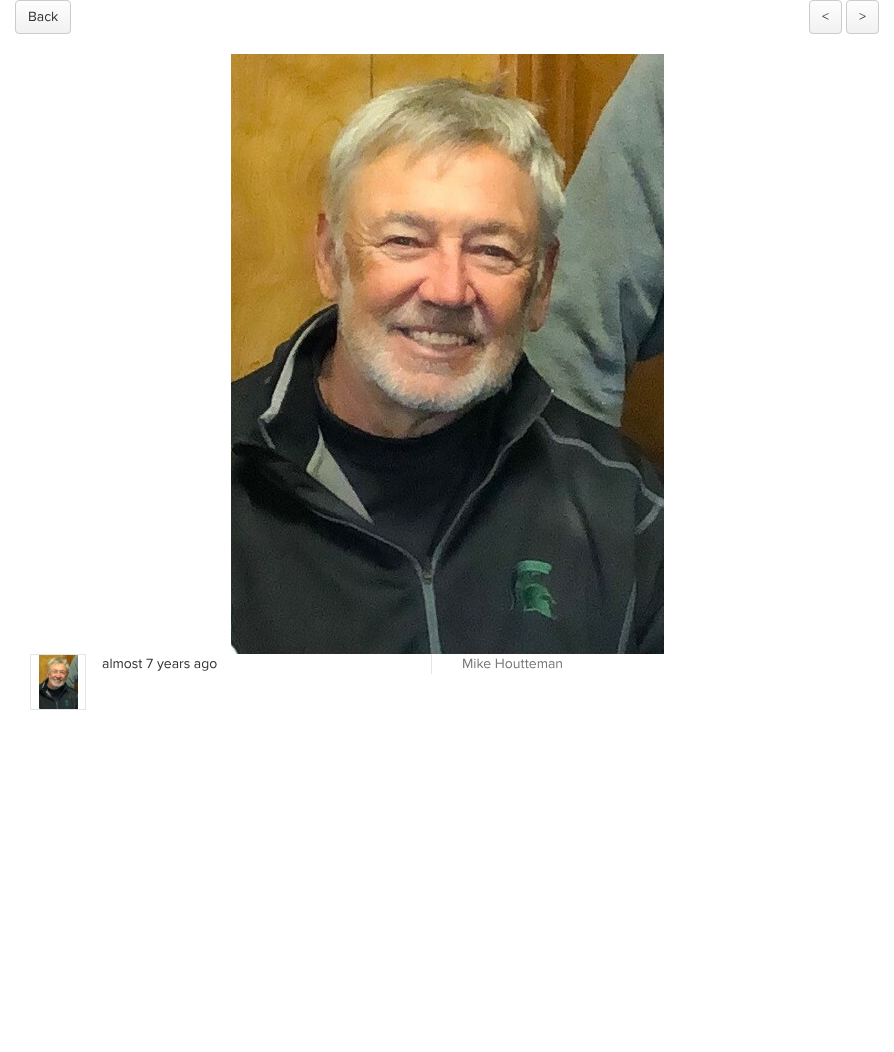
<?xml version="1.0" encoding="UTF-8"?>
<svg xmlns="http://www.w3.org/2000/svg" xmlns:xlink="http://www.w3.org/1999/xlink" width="894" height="1052">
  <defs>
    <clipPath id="clip1"><rect x="15" width="56" height="34" rx="4" /></clipPath>
    <linearGradient id="g1" gradientUnits="userSpaceOnUse" x1="43" y1="1" x2="43" y2="33"><stop offset="0" stop-color="#fefefe" /><stop offset="1" stop-color="#f1f1f1" /></linearGradient>
    <clipPath id="clip2"><rect x="809" width="33" height="34" rx="4" /></clipPath>
    <linearGradient id="g2" gradientUnits="userSpaceOnUse" x1="826" y1="1" x2="826" y2="33"><stop offset="0" stop-color="#fefefe" /><stop offset="1" stop-color="#f1f1f1" /></linearGradient>
    <clipPath id="clip3"><rect x="846" width="33" height="34" rx="4" /></clipPath>
    <linearGradient id="g3" gradientUnits="userSpaceOnUse" x1="863" y1="1" x2="863" y2="33"><stop offset="0" stop-color="#fefefe" /><stop offset="1" stop-color="#f1f1f1" /></linearGradient>
  </defs>
  <rect width="100%" height="100%" fill="#ffffff" />
  <g clip-path="url(#clip1)">
    <rect x="15" y="1" width="56" height="32" fill="url(#g1)" />
  </g>
  <rect x="15.5" y="0.5" width="55" height="33" rx="3.5" fill="none" stroke="#cccccc" />
  <g clip-path="url(#clip2)">
    <rect x="809" y="1" width="33" height="32" fill="url(#g2)" />
  </g>
  <rect x="809.5" y="0.5" width="32" height="33" rx="3.5" fill="none" stroke="#cccccc" />
  <g clip-path="url(#clip3)">
    <rect x="846" y="1" width="33" height="32" fill="url(#g3)" />
  </g>
  <rect x="846.5" y="0.5" width="32" height="33" rx="3.5" fill="none" stroke="#cccccc" />
  <image x="231" y="54" width="433" height="600" xlink:href="image1.png" />
  <rect x="30.5" y="654.5" width="55" height="55" fill="none" stroke="#e2e6e9" />
  <image x="39" y="655" width="39" height="54" xlink:href="image2.png" />
  <rect x="431" y="654" width="1" height="20" fill="#e2e6e9" />
  <text x="28" y="21" style="font-family: Proxima Nova; font-size: 14px; fill: #333333">Back</text>
  <text x="822" y="21" style="font-family: Proxima Nova; font-size: 14px; fill: #333333">&lt;</text>
  <text x="859" y="21" style="font-family: Proxima Nova; font-size: 14px; fill: #333333">&gt;</text>
  <text x="102" y="668" style="font-family: Proxima Nova; font-size: 14px; fill: #333333">almost 7 years ago</text>
  <text x="462" y="668" style="font-family: Proxima Nova; font-size: 14px; fill: #777777">Mike Houtteman</text>
</svg>
